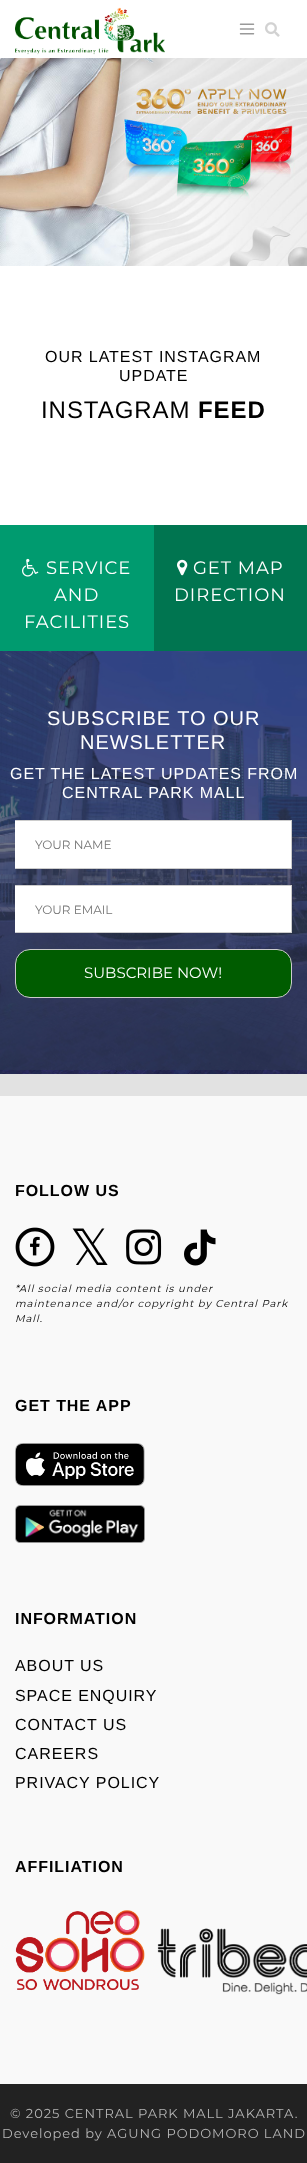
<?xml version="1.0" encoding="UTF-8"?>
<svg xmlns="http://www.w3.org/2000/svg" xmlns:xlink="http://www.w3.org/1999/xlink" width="307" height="2163">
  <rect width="100%" height="100%" fill="#ffffff" />
  <image x="15" y="7" width="150" height="48" xlink:href="image1.png" />
  <image x="239" y="23" width="16" height="12" xlink:href="image2.png" />
  <image x="265" y="22" width="15" height="15" xlink:href="image3.png" />
  <image x="0" y="58" width="307" height="208" xlink:href="image4.png" />
  <rect y="525" width="154" height="126" fill="#009b6f" />
  <image x="22" y="558" width="17" height="19" xlink:href="image5.png" />
  <rect x="154" y="525" width="153" height="126" fill="#007550" />
  <image x="177" y="559" width="11" height="17" xlink:href="image6.png" />
  <rect y="1074" width="307" height="22" fill="#e2e2e2" />
  <image x="0" y="651" width="307" height="423" xlink:href="image7.png" />
  <rect x="15" y="820" width="277" height="49" rx="1" fill="#ffffff" />
  <rect x="16" y="820" width="276" height="1" fill="#cccccc" />
  <rect x="291" y="821" width="1" height="48" fill="#cccccc" />
  <rect x="16" y="868" width="276" height="1" fill="#cccccc" />
  <rect x="15" y="885" width="277" height="48" rx="1" fill="#ffffff" />
  <rect x="16" y="885" width="276" height="1" fill="#cccccc" />
  <rect x="291" y="886" width="1" height="47" fill="#cccccc" />
  <rect x="16" y="932" width="276" height="1" fill="#cccccc" />
  <rect x="15.5" y="949.5" width="276" height="48" rx="14.5" fill="#005c00" stroke="#cccccc" />
  <rect y="1096" width="307" height="988" fill="#f9f9f9" />
  <image x="15" y="1227" width="40" height="40" xlink:href="image8.png" />
  <image x="30" y="1236" width="10" height="20" xlink:href="image9.png" />
  <image x="126" y="1229" width="36" height="36" xlink:href="image10.png" />
  <image x="184" y="1229" width="32" height="37" xlink:href="image11.png" />
  <image x="15" y="1443" width="130" height="43" xlink:href="image12.png" />
  <image x="15" y="1505" width="130" height="38" xlink:href="image13.png" />
  <image x="15" y="1910" width="130" height="81" xlink:href="image14.png" />
  <image x="157" y="1928" width="150" height="67" xlink:href="image15.png" />
  <rect y="2084" width="307" height="79" fill="#222222" />
  <text x="45" y="362" style="font-family: Liberation Sans; font-size: 16px; letter-spacing: 0.95px; fill: #000000">OUR LATEST INSTAGRAM</text>
  <text x="119" y="381" style="font-family: Liberation Sans; font-size: 16px; letter-spacing: 0.95px; fill: #000000">UPDATE</text>
  <text x="41" y="418" style="font-family: Liberation Sans; font-size: 24px; letter-spacing: 0.95px; fill: #000000">INSTAGRAM</text>
  <text x="198" y="418" style="font-family: Liberation Sans; font-size: 24px; font-weight: bold; letter-spacing: 0.95px; fill: #000000">FEED</text>
  <text x="46" y="574" style="font-family: Montserrat; font-size: 18px; font-weight: 100; letter-spacing: 0.95px; fill: #ffffff">SERVICE</text>
  <text x="54" y="601" style="font-family: Montserrat; font-size: 18px; font-weight: 100; letter-spacing: 0.95px; fill: #ffffff">AND</text>
  <text x="24" y="628" style="font-family: Montserrat; font-size: 18px; font-weight: 100; letter-spacing: 0.95px; fill: #ffffff">FACILITIES</text>
  <text x="193" y="574" style="font-family: Montserrat; font-size: 18px; font-weight: 100; letter-spacing: 0.95px; fill: #ffffff">GET MAP</text>
  <text x="174" y="601" style="font-family: Montserrat; font-size: 18px; font-weight: 100; letter-spacing: 0.95px; fill: #ffffff">DIRECTION</text>
  <text x="47" y="725" style="font-family: Liberation Sans; font-size: 20px; letter-spacing: 0.95px; fill: #ffffff">SUBSCRIBE TO OUR</text>
  <text x="80" y="749" style="font-family: Liberation Sans; font-size: 20px; letter-spacing: 0.95px; fill: #ffffff">NEWSLETTER</text>
  <text x="10" y="779" style="font-family: Liberation Sans; font-size: 16px; letter-spacing: 0.95px; fill: #ffffff">GET THE LATEST UPDATES FROM</text>
  <text x="62" y="798" style="font-family: Liberation Sans; font-size: 16px; letter-spacing: 0.95px; fill: #ffffff">CENTRAL PARK MALL</text>
  <text x="35" y="849" style="font-family: Montserrat; font-size: 12px; font-weight: 100; fill: #757575">YOUR NAME</text>
  <text x="35" y="914" style="font-family: Montserrat; font-size: 12px; font-weight: 100; fill: #757575">YOUR EMAIL</text>
  <text x="84" y="978" style="font-family: Montserrat; font-size: 15px; font-weight: 100; fill: #ffffff">SUBSCRIBE NOW!</text>
  <text x="15" y="1196" style="font-family: Liberation Sans; font-size: 16px; font-weight: bold; letter-spacing: 0.95px; fill: #000000">FOLLOW US</text>
  <text x="70" y="1265" style="font-family: DejaVu Sans; font-size: 50px; letter-spacing: 0.95px; fill: #000000">𝕏</text>
  <text x="15" y="1292" style="font-family: Montserrat; font-size: 10px; font-weight: 100; font-style: italic; letter-spacing: 0.95px; fill: #000000">*All social media content is under</text>
  <text x="15" y="1307" style="font-family: Montserrat; font-size: 10px; font-weight: 100; font-style: italic; letter-spacing: 0.95px; fill: #000000">maintenance and/or copyright by Central Park</text>
  <text x="15" y="1322" style="font-family: Montserrat; font-size: 10px; font-weight: 100; font-style: italic; letter-spacing: 0.95px; fill: #000000">Mall.</text>
  <text x="15" y="1411" style="font-family: Liberation Sans; font-size: 16px; font-weight: bold; letter-spacing: 0.95px; fill: #000000">GET THE APP</text>
  <text x="15" y="1624" style="font-family: Liberation Sans; font-size: 16px; font-weight: bold; letter-spacing: 0.95px; fill: #000000">INFORMATION</text>
  <text x="15" y="1671" style="font-family: Liberation Sans; font-size: 16px; letter-spacing: 0.95px; fill: #000000">ABOUT US</text>
  <text x="15" y="1701" style="font-family: Liberation Sans; font-size: 16px; letter-spacing: 0.95px; fill: #000000">SPACE ENQUIRY</text>
  <text x="15" y="1730" style="font-family: Liberation Sans; font-size: 16px; letter-spacing: 0.95px; fill: #000000">CONTACT US</text>
  <text x="15" y="1759" style="font-family: Liberation Sans; font-size: 16px; letter-spacing: 0.95px; fill: #000000">CAREERS</text>
  <text x="15" y="1788" style="font-family: Liberation Sans; font-size: 16px; letter-spacing: 0.95px; fill: #000000">PRIVACY POLICY</text>
  <text x="15" y="1872" style="font-family: Liberation Sans; font-size: 16px; font-weight: bold; letter-spacing: 0.95px; fill: #000000">AFFILIATION</text>
  <text x="10" y="2118" style="font-family: Montserrat; font-size: 13px; font-weight: 100; letter-spacing: 0.95px; fill: #b5b5b5">© 2025 CENTRAL PARK MALL JAKARTA.</text>
  <text x="2" y="2138" style="font-family: Montserrat; font-size: 13px; font-weight: 100; letter-spacing: 0.95px; fill: #b5b5b5">Developed by AGUNG PODOMORO LAND</text>
</svg>
